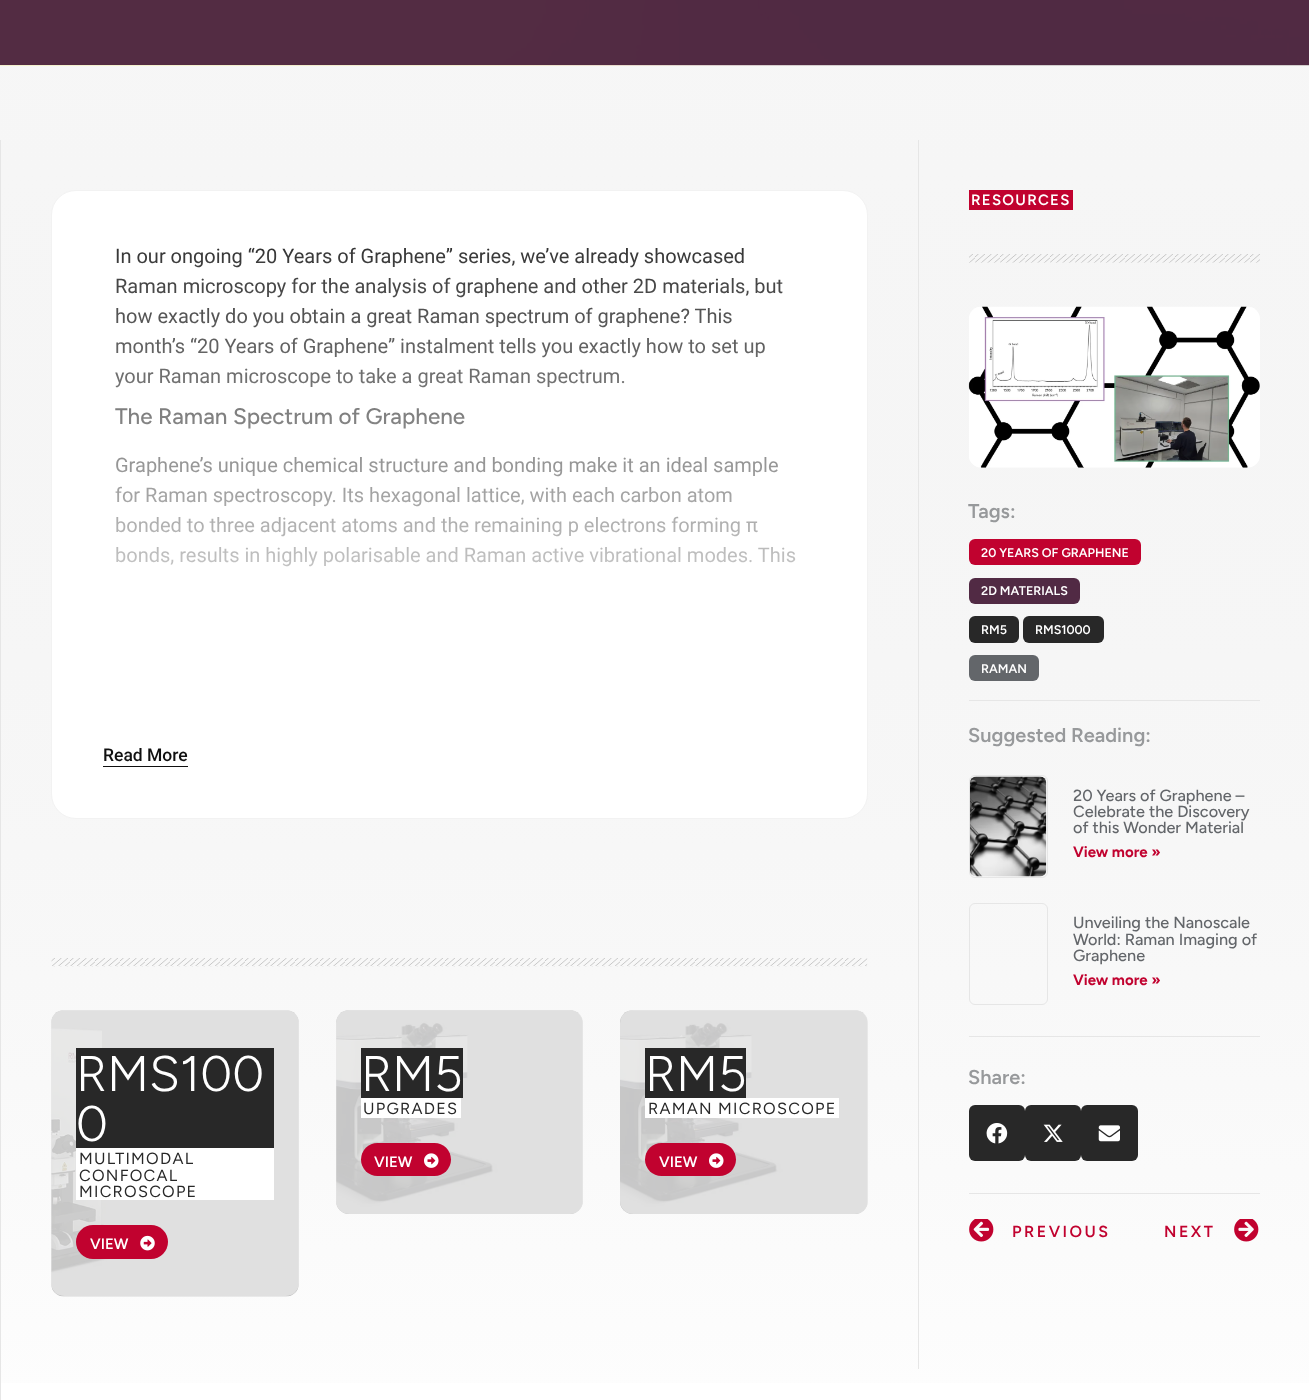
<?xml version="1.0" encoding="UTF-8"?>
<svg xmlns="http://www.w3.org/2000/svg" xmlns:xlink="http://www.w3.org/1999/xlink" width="1309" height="1400">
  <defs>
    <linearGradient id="g1" gradientUnits="userSpaceOnUse" x1="655" y1="65" x2="655" y2="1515"><stop offset="0" stop-color="#e6e6e6" stop-opacity="0.34" /><stop offset="1" stop-color="#ffffff" /></linearGradient>
    <linearGradient id="g2" gradientUnits="userSpaceOnUse" x1="459" y1="241" x2="459" y2="701"><stop offset="0" stop-color="#ffffff" stop-opacity="0" /><stop offset="1" stop-color="#ffffff" /></linearGradient>
  </defs>
  <rect width="100%" height="100%" fill="#ffffff" />
  <image x="0" y="0" width="1309" height="66" xlink:href="image1.png" />
  <rect y="65" width="1309" height="1318" fill="url(#g1)" />
  <rect y="140" width="1" height="1260" fill="#e6e6e6" />
  <rect x="51.5" y="190.5" width="816" height="628" rx="24.5" fill="#ffffff" stroke="#f2f2f2" />
  <rect x="103" y="766" width="85" height="1" fill="#101010" />
  <image x="51" y="958" width="817" height="9" xlink:href="image2.png" />
  <rect x="51" y="1010" width="248" height="286" rx="13" fill="#ffffff" />
  <image x="51" y="1010" width="248" height="287" xlink:href="image3.png" />
  <rect x="51" y="1010" width="248" height="286" rx="13" fill="#e6e6e6" fill-opacity="0.86" />
  <rect x="76" y="1048" width="198" height="100" fill="#282828" />
  <rect x="76" y="1148" width="198" height="52" fill="#ffffff" />
  <rect x="76" y="1225" width="92" height="34" rx="17" fill="#c1022f" />
  <image x="140" y="1235" width="15" height="16" xlink:href="image4.png" />
  <rect x="336" y="1010" width="247" height="204" rx="13" fill="#ffffff" />
  <image x="336" y="1010" width="247" height="204" xlink:href="image5.png" />
  <rect x="336" y="1010" width="247" height="204" rx="13" fill="#e6e6e6" fill-opacity="0.86" />
  <rect x="361" y="1048" width="102" height="50" fill="#282828" />
  <rect x="361" y="1098" width="100" height="20" fill="#ffffff" />
  <rect x="361" y="1143" width="90" height="33" rx="16.5" fill="#c1022f" />
  <image x="424" y="1153" width="15" height="15" xlink:href="image6.png" />
  <rect x="620" y="1010" width="248" height="204" rx="13" fill="#ffffff" />
  <image x="620" y="1010" width="248" height="204" xlink:href="image7.png" />
  <rect x="620" y="1010" width="248" height="204" rx="13" fill="#e6e6e6" fill-opacity="0.86" />
  <rect x="645" y="1048" width="101" height="50" fill="#282828" />
  <rect x="645" y="1098" width="194" height="20" fill="#ffffff" />
  <rect x="645" y="1143" width="91" height="33" rx="16.5" fill="#c1022f" />
  <image x="709" y="1153" width="15" height="15" xlink:href="image6.png" />
  <rect x="918" y="140" width="1" height="1229" fill="#e6e6e6" />
  <rect x="969" y="190" width="104" height="20" fill="#c1022f" />
  <image x="969" y="254" width="291" height="9" xlink:href="image8.png" />
  <image x="968" y="306" width="292" height="162" xlink:href="image9.png" />
  <rect x="969" y="539" width="172" height="26" rx="6" fill="#c1022f" />
  <rect x="969" y="578" width="111" height="26" rx="6" fill="#512a44" />
  <rect x="969" y="616" width="50" height="27" rx="6" fill="#282828" />
  <rect x="1023" y="616" width="81" height="27" rx="6" fill="#282828" />
  <rect x="969" y="655" width="70" height="26" rx="6" fill="#63666a" />
  <rect x="969" y="700" width="291" height="1" fill="#e6e6e6" />
  <rect x="969.5" y="775.5" width="78" height="102" rx="5.5" fill="none" stroke="#e6e6e6" />
  <image x="970" y="776" width="77" height="101" xlink:href="image10.png" />
  <rect x="969.5" y="903.5" width="78" height="101" rx="5.5" fill="none" stroke="#e6e6e6" />
  <rect x="969" y="1036" width="291" height="1" fill="#e6e6e6" />
  <rect x="969" y="1105" width="56" height="56" rx="6" fill="#282828" />
  <image x="986" y="1123" width="22" height="21" xlink:href="image11.png" />
  <rect x="1025" y="1105" width="56" height="56" rx="6" fill="#282828" />
  <image x="1043" y="1124" width="20" height="18" xlink:href="image12.png" />
  <rect x="1081" y="1105" width="57" height="56" rx="6" fill="#282828" />
  <image x="1098" y="1125" width="22" height="17" xlink:href="image13.png" />
  <rect x="969" y="1193" width="291" height="1" fill="#e6e6e6" />
  <image x="969" y="1219" width="25" height="23" xlink:href="image14.png" />
  <image x="1234" y="1219" width="25" height="23" xlink:href="image15.png" />
  <text x="115" y="263" style="font-family: Roboto; font-size: 20px; fill: #333333">In our ongoing “20 Years of Graphene” series, we’ve already showcased</text>
  <text x="115" y="293" style="font-family: Roboto; font-size: 20px; fill: #333333">Raman microscopy for the analysis of graphene and other 2D materials, but</text>
  <text x="115" y="323" style="font-family: Roboto; font-size: 20px; fill: #333333">how exactly do you obtain a great Raman spectrum of graphene? This</text>
  <text x="115" y="353" style="font-family: Roboto; font-size: 20px; fill: #333333">month’s “20 Years of Graphene” instalment tells you exactly how to set up</text>
  <text x="115" y="383" style="font-family: Roboto; font-size: 20px; fill: #333333">your Raman microscope to take a great Raman spectrum.</text>
  <text x="115" y="424" style="font-family: Figtree; font-size: 22.5px; font-weight: 500; fill: #333333">The Raman Spectrum of Graphene</text>
  <text x="115" y="472" style="font-family: Roboto; font-size: 20px; fill: #333333">Graphene’s unique chemical structure and bonding make it an ideal sample</text>
  <text x="115" y="502" style="font-family: Roboto; font-size: 20px; fill: #333333">for Raman spectroscopy. Its hexagonal lattice, with each carbon atom</text>
  <text x="115" y="532" style="font-family: Roboto; font-size: 20px; fill: #333333">bonded to three adjacent atoms and the remaining p electrons forming π</text>
  <text x="115" y="562" style="font-family: Roboto; font-size: 20px; fill: #333333">bonds, results in highly polarisable and Raman active vibrational modes. This</text>
  <rect x="115" y="251" width="680" height="316" fill="url(#g2)" />
  <text x="103" y="761" style="font-family: Roboto; font-size: 17.5px; font-weight: 500; fill: #101010">Read More</text>
  <text x="76" y="1091" style="font-family: Figtree; font-size: 50px; font-weight: 300; fill: #ffffff">RMS100</text>
  <text x="76" y="1141" style="font-family: Figtree; font-size: 50px; font-weight: 300; fill: #ffffff">0</text>
  <text x="79" y="1164" style="font-family: Figtree; font-size: 16.25px; letter-spacing: 1.25px; fill: #282828">MULTIMODAL</text>
  <text x="79" y="1181" style="font-family: Figtree; font-size: 16.25px; letter-spacing: 1.25px; fill: #282828">CONFOCAL</text>
  <text x="79" y="1197" style="font-family: Figtree; font-size: 16.25px; letter-spacing: 1.25px; fill: #282828">MICROSCOPE</text>
  <text x="90" y="1249" style="font-family: Figtree; font-size: 15px; font-weight: 600; fill: #ffffff">VIEW</text>
  <text x="361" y="1091" style="font-family: Figtree; font-size: 50px; font-weight: 300; fill: #ffffff">RM5</text>
  <text x="363" y="1114" style="font-family: Figtree; font-size: 16.25px; letter-spacing: 1.25px; fill: #282828">UPGRADES</text>
  <text x="374" y="1167" style="font-family: Figtree; font-size: 15px; font-weight: 600; fill: #ffffff">VIEW</text>
  <text x="645" y="1091" style="font-family: Figtree; font-size: 50px; font-weight: 300; fill: #ffffff">RM5</text>
  <text x="648" y="1114" style="font-family: Figtree; font-size: 16.25px; letter-spacing: 1.25px; fill: #282828">RAMAN MICROSCOPE</text>
  <text x="659" y="1167" style="font-family: Figtree; font-size: 15px; font-weight: 600; fill: #ffffff">VIEW</text>
  <text x="971" y="205" style="font-family: Figtree; font-size: 15px; font-weight: 600; letter-spacing: 1.25px; fill: #ffffff">RESOURCES</text>
  <text x="968" y="518" style="font-family: Figtree; font-size: 20px; font-weight: 600; fill: #97999b">Tags:</text>
  <text x="981" y="557" style="font-family: Figtree; font-size: 12.5px; font-weight: 600; fill: #ffffff">20 YEARS OF GRAPHENE</text>
  <text x="981" y="595" style="font-family: Figtree; font-size: 12.5px; font-weight: 600; fill: #ffffff">2D MATERIALS</text>
  <text x="981" y="634" style="font-family: Figtree; font-size: 12.5px; font-weight: 600; fill: #ffffff">RM5</text>
  <text x="1035" y="634" style="font-family: Figtree; font-size: 12.5px; font-weight: 600; fill: #ffffff">RMS1000</text>
  <text x="981" y="673" style="font-family: Figtree; font-size: 12.5px; font-weight: 600; fill: #ffffff">RAMAN</text>
  <text x="968" y="742" style="font-family: Figtree; font-size: 20px; font-weight: 600; fill: #97999b">Suggested Reading:</text>
  <text x="1073" y="801" style="font-family: Figtree; font-size: 16.25px; font-weight: 500; fill: #63666a">20 Years of Graphene –</text>
  <text x="1073" y="817" style="font-family: Figtree; font-size: 16.25px; font-weight: 500; fill: #63666a">Celebrate the Discovery</text>
  <text x="1073" y="833" style="font-family: Figtree; font-size: 16.25px; font-weight: 500; fill: #63666a">of this Wonder Material</text>
  <text x="1073" y="857" style="font-family: Figtree; font-size: 15px; font-weight: bold; fill: #c1022f">View more »</text>
  <text x="1073" y="928" style="font-family: Figtree; font-size: 16.25px; font-weight: 500; fill: #63666a">Unveiling the Nanoscale</text>
  <text x="1073" y="945" style="font-family: Figtree; font-size: 16.25px; font-weight: 500; fill: #63666a">World: Raman Imaging of</text>
  <text x="1073" y="961" style="font-family: Figtree; font-size: 16.25px; font-weight: 500; fill: #63666a">Graphene</text>
  <text x="1073" y="985" style="font-family: Figtree; font-size: 15px; font-weight: bold; fill: #c1022f">View more »</text>
  <text x="968" y="1084" style="font-family: Figtree; font-size: 20px; font-weight: 600; fill: #97999b">Share:</text>
  <text x="1012" y="1237" style="font-family: Figtree; font-size: 16px; font-weight: 600; letter-spacing: 2.5px; fill: #c1022f">PREVIOUS</text>
  <text x="1164" y="1237" style="font-family: Figtree; font-size: 16px; font-weight: 600; letter-spacing: 2.5px; fill: #c1022f">NEXT</text>
</svg>
